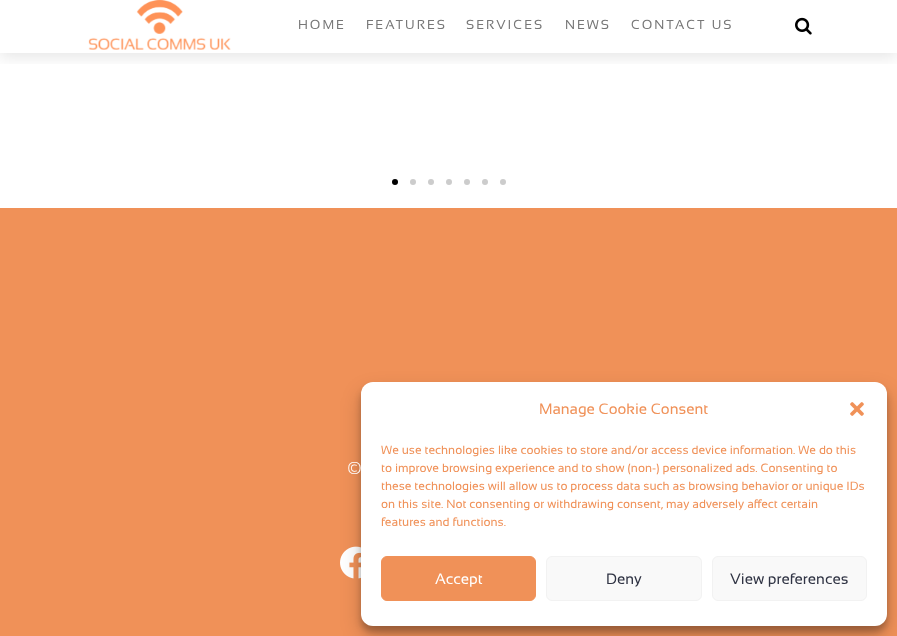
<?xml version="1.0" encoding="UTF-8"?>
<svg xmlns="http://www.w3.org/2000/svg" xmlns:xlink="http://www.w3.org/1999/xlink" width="897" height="636">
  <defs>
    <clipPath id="clip1"><rect x="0" y="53" width="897" height="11" /></clipPath>
  </defs>
  <rect width="100%" height="100%" fill="#ffffff" />
  <g clip-path="url(#clip1)">
    <rect y="4" width="897" height="53" fill="#000000" fill-opacity="0.1" filter="blur(8px)" />
  </g>
  <image x="88" y="0" width="143" height="50" xlink:href="image1.png" />
  <image x="795" y="17" width="17" height="18" xlink:href="image2.png" />
  <circle cx="395" cy="182" r="3" fill="#000000" />
  <circle cx="413" cy="182" r="3" fill="#cccccc" />
  <circle cx="431" cy="182" r="3" fill="#cccccc" />
  <circle cx="449" cy="182" r="3" fill="#cccccc" />
  <circle cx="467" cy="182" r="3" fill="#cccccc" />
  <circle cx="485" cy="182" r="3" fill="#cccccc" />
  <circle cx="503" cy="182" r="3" fill="#cccccc" />
  <rect y="208" width="897" height="428" fill="#f09158" />
  <image x="340" y="546" width="21" height="33" xlink:href="image3.png" />
  <rect x="361" y="388" width="526" height="244" rx="12" fill="#000000" fill-opacity="0.23" filter="blur(3px)" />
  <rect x="361" y="392" width="526" height="244" rx="12" fill="#000000" fill-opacity="0.19" filter="blur(10px)" />
  <rect x="361" y="382" width="526" height="244" rx="12" fill="#ffffff" />
  <image x="850" y="402" width="14" height="14" xlink:href="image4.png" />
  <rect x="381.5" y="556.5" width="154" height="44" rx="5.5" fill="#f09158" stroke="#f09158" />
  <rect x="546.5" y="556.5" width="155" height="44" rx="5.5" fill="#f9f9f9" stroke="#f2f2f2" />
  <rect x="712.5" y="556.5" width="154" height="44" rx="5.5" fill="#f9f9f9" stroke="#f2f2f2" />
  <text x="298" y="29" style="font-family: Sansation; font-size: 13px; letter-spacing: 2px; fill: #777777">HOME</text>
  <text x="366" y="29" style="font-family: Sansation; font-size: 13px; letter-spacing: 2px; fill: #777777">FEATURES</text>
  <text x="466" y="29" style="font-family: Sansation; font-size: 13px; letter-spacing: 2px; fill: #777777">SERVICES</text>
  <text x="565" y="29" style="font-family: Sansation; font-size: 13px; letter-spacing: 2px; fill: #777777">NEWS</text>
  <text x="631" y="29" style="font-family: Sansation; font-size: 13px; letter-spacing: 2px; fill: #777777">CONTACT US</text>
  <text x="347" y="474" style="font-family: Sansation; font-size: 17px; fill: #ffffff">©</text>
  <text x="539" y="414" style="font-family: Sansation; font-size: 15px; fill: #f09158">Manage Cookie Consent</text>
  <text x="381" y="454" style="font-family: Sansation; font-size: 12px; fill: #f09158">We use technologies like cookies to store and/or access device information. We do this</text>
  <text x="381" y="472" style="font-family: Sansation; font-size: 12px; fill: #f09158">to improve browsing experience and to show (non-) personalized ads. Consenting to</text>
  <text x="381" y="490" style="font-family: Sansation; font-size: 12px; fill: #f09158">these technologies will allow us to process data such as browsing behavior or unique IDs</text>
  <text x="381" y="508" style="font-family: Sansation; font-size: 12px; fill: #f09158">on this site. Not consenting or withdrawing consent, may adversely affect certain</text>
  <text x="381" y="526" style="font-family: Sansation; font-size: 12px; fill: #f09158">features and functions.</text>
  <text x="435" y="584" style="font-family: Sansation; font-size: 15px; fill: #ffffff">Accept</text>
  <text x="606" y="584" style="font-family: Sansation; font-size: 15px; fill: #303444">Deny</text>
  <text x="730" y="584" style="font-family: Sansation; font-size: 15px; fill: #303444">View preferences</text>
</svg>
